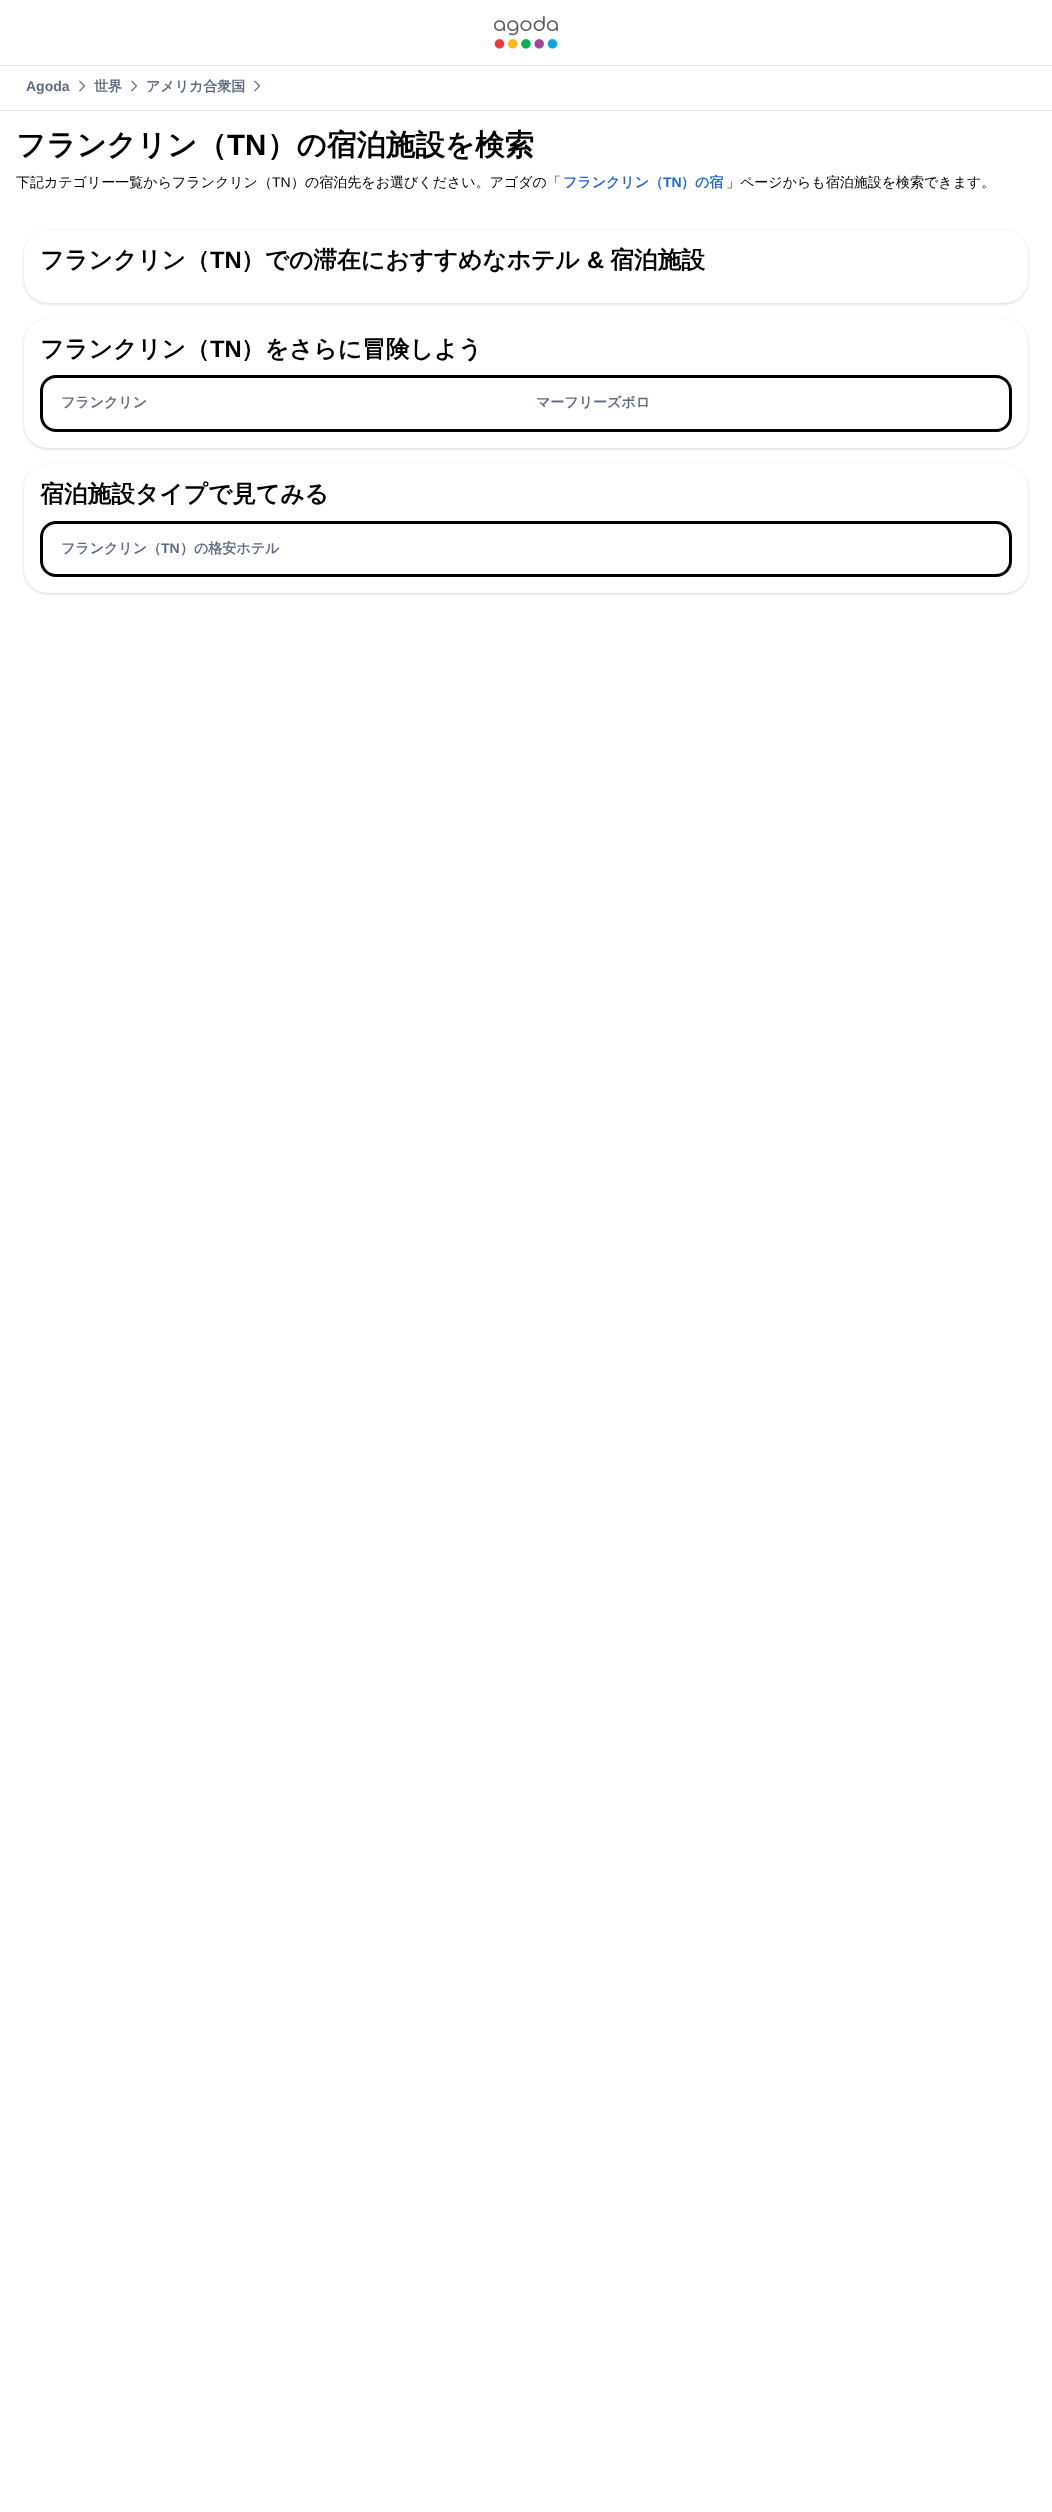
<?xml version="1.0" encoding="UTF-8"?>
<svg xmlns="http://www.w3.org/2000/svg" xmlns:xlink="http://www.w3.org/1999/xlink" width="1052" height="2512">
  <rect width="100%" height="100%" fill="#ffffff" />
  <image x="494" y="16" width="64" height="33" xlink:href="image1.png" />
  <rect y="65" width="1052" height="1" fill="#e5e7eb" />
  <image x="79" y="80" width="6" height="12" xlink:href="image2.png" />
  <image x="131" y="80" width="6" height="12" xlink:href="image2.png" />
  <image x="254" y="80" width="6" height="12" xlink:href="image2.png" />
  <rect y="110" width="1052" height="1" fill="#e5e7eb" />
  <rect x="24" y="231" width="1004" height="73" rx="24" fill="#04070a" fill-opacity="0.16" filter="blur(1.5px)" />
  <rect x="24" y="230" width="1004" height="73" rx="24" fill="#ffffff" />
  <rect x="24" y="320" width="1004" height="129" rx="24" fill="#04070a" fill-opacity="0.16" filter="blur(1.5px)" />
  <rect x="24" y="319" width="1004" height="129" rx="24" fill="#ffffff" />
  <rect x="41.5" y="376.5" width="969" height="54" rx="14.5" fill="none" stroke="#000000" stroke-width="3" />
  <rect x="24" y="465" width="1004" height="129" rx="24" fill="#04070a" fill-opacity="0.16" filter="blur(1.5px)" />
  <rect x="24" y="464" width="1004" height="129" rx="24" fill="#ffffff" />
  <rect x="41.5" y="522.5" width="969" height="53" rx="14.5" fill="none" stroke="#000000" stroke-width="3" />
  <text x="26" y="91" style="font-family: Liberation Sans; font-size: 14px; font-weight: bold; fill: #5e6b82">Agoda</text>
  <text x="94" y="91" style="font-family: WenQuanYi Zen Hei; font-size: 14px; font-weight: bold; fill: #5e6b82">世界</text>
  <text x="146" y="91" style="font-family: WenQuanYi Zen Hei; font-size: 14px; font-weight: bold; fill: #5e6b82">アメリカ合衆国</text>
  <text x="16" y="155" style="font-family: WenQuanYi Zen Hei; font-size: 29.5px; font-weight: bold; fill: #000000">フランクリン（</text>
  <text x="227" y="155" style="font-family: Liberation Sans; font-size: 29.5px; font-weight: bold; fill: #000000">TN</text>
  <text x="267" y="155" style="font-family: WenQuanYi Zen Hei; font-size: 29.5px; font-weight: bold; fill: #000000">）の宿泊施設を検索</text>
  <text x="16" y="187" style="font-family: WenQuanYi Zen Hei; font-size: 14px; font-weight: 500; fill: #000000">下記カテゴリー一覧からフランクリン（</text>
  <text x="272" y="187" style="font-family: Liberation Sans; font-size: 14px; fill: #000000">TN</text>
  <text x="291" y="187" style="font-family: WenQuanYi Zen Hei; font-size: 14px; font-weight: 500; fill: #000000">）の宿泊先をお選びください。アゴダの「</text>
  <text x="563" y="187" style="font-family: WenQuanYi Zen Hei; font-size: 14px; font-weight: bold; fill: #2067da">フランクリン（</text>
  <text x="663" y="187" style="font-family: Liberation Sans; font-size: 14px; font-weight: bold; fill: #2067da">TN</text>
  <text x="681" y="187" style="font-family: WenQuanYi Zen Hei; font-size: 14px; font-weight: bold; fill: #2067da">）の宿</text>
  <text x="726" y="187" style="font-family: WenQuanYi Zen Hei; font-size: 14px; font-weight: 500; fill: #000000">」ページからも宿泊施設を検索できます。</text>
  <text x="40" y="268" style="font-family: WenQuanYi Zen Hei; font-size: 23.75px; font-weight: bold; fill: #000000">フランクリン（</text>
  <text x="210" y="268" style="font-family: Liberation Sans; font-size: 23.75px; font-weight: bold; fill: #000000">TN</text>
  <text x="241" y="268" style="font-family: WenQuanYi Zen Hei; font-size: 23.75px; font-weight: bold; fill: #000000">）での滞在におすすめなホテル</text>
  <text x="587" y="268" style="font-family: Liberation Sans; font-size: 23.75px; font-weight: bold; fill: #000000">&amp;</text>
  <text x="610" y="268" style="font-family: WenQuanYi Zen Hei; font-size: 23.75px; font-weight: bold; fill: #000000">宿泊施設</text>
  <text x="40" y="357" style="font-family: WenQuanYi Zen Hei; font-size: 23.75px; font-weight: bold; fill: #000000">フランクリン（</text>
  <text x="210" y="357" style="font-family: Liberation Sans; font-size: 23.75px; font-weight: bold; fill: #000000">TN</text>
  <text x="241" y="357" style="font-family: WenQuanYi Zen Hei; font-size: 23.75px; font-weight: bold; fill: #000000">）をさらに冒険しよう</text>
  <text x="61" y="407" style="font-family: WenQuanYi Zen Hei; font-size: 14px; font-weight: bold; fill: #5e6b82">フランクリン</text>
  <text x="536" y="407" style="font-family: WenQuanYi Zen Hei; font-size: 14px; font-weight: bold; fill: #5e6b82">マーフリーズボロ</text>
  <text x="40" y="502" style="font-family: WenQuanYi Zen Hei; font-size: 23.75px; font-weight: bold; fill: #000000">宿泊施設タイプで見てみる</text>
  <text x="61" y="553" style="font-family: WenQuanYi Zen Hei; font-size: 14px; font-weight: bold; fill: #5e6b82">フランクリン（</text>
  <text x="161" y="553" style="font-family: Liberation Sans; font-size: 14px; font-weight: bold; fill: #5e6b82">TN</text>
  <text x="180" y="553" style="font-family: WenQuanYi Zen Hei; font-size: 14px; font-weight: bold; fill: #5e6b82">）の格安ホテル</text>
</svg>
